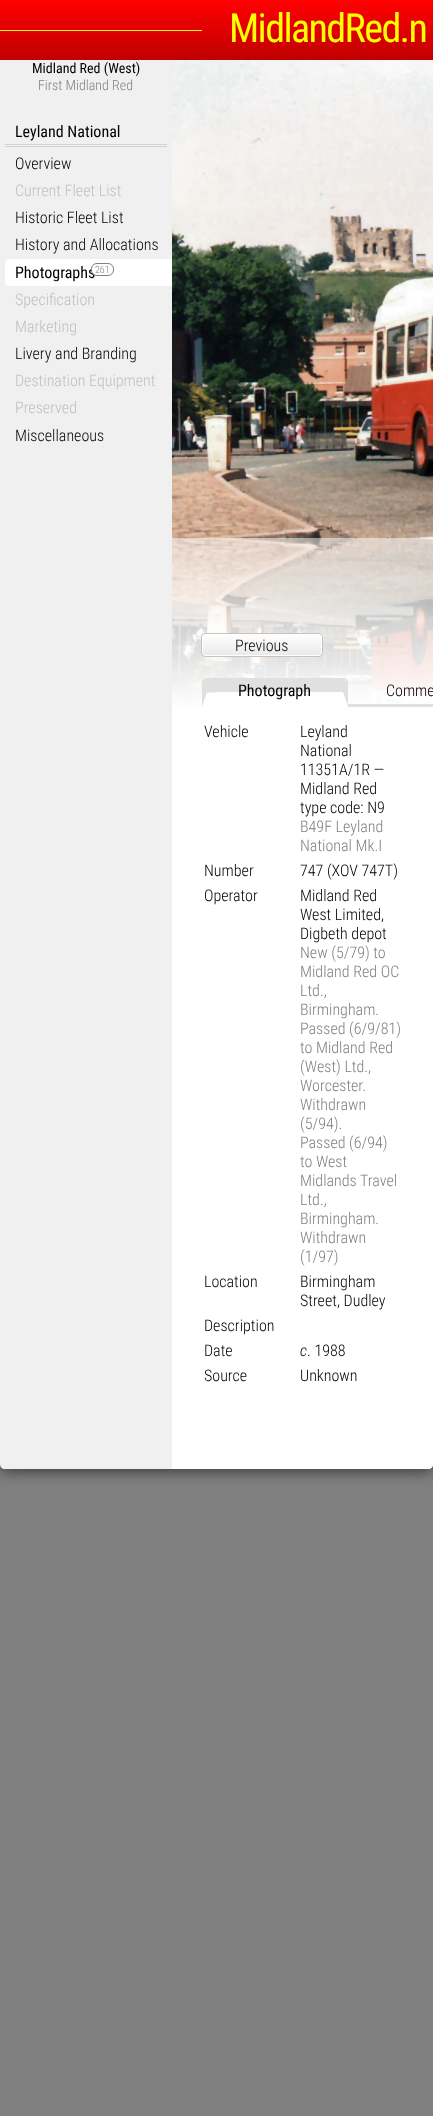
<?xml version="1.0" encoding="UTF-8"?>
<svg xmlns="http://www.w3.org/2000/svg" xmlns:xlink="http://www.w3.org/1999/xlink" width="433" height="2116">
  <defs>
    <linearGradient id="g1" gradientUnits="userSpaceOnUse" x1="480" y1="0" x2="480" y2="60"><stop offset="0" stop-color="#ff0000" /><stop offset="1" stop-color="#c00000" /></linearGradient>
    <clipPath id="clip1"><rect x="201" y="633" width="122" height="24" rx="4" /></clipPath>
    <linearGradient id="g2" gradientUnits="userSpaceOnUse" x1="262" y1="634" x2="262" y2="656"><stop offset="0" stop-color="#ffffff" /><stop offset="1" stop-color="#e9e9e9" /></linearGradient>
  </defs>
  <rect width="100%" height="100%" fill="#808080" />
  <rect y="2" width="433" height="1469" rx="5" fill="#333333" filter="blur(7.5px)" />
  <path d="M 0 0 h 433 v 1464 c 0 3 -2 5 -5 5 h -423 c -3 0 -5 -2 -5 -5 z" fill="#f0f0f0" />
  <path d="M 172 0 h 261 v 1464 c 0 3 -2 5 -5 5 h -256 z" fill="#ffffff" />
  <rect width="433" height="60" fill="url(#g1)" />
  <rect y="30" width="202" height="1" fill="#ffff00" />
  <rect x="5" y="144" width="162" height="1" fill="#d2d2d2" />
  <rect x="5" y="146" width="162" height="1" fill="#d2d2d2" />
  <path d="M 10 259 h 162 v 27 h -162 c -3 0 -5 -2 -5 -5 v -17 c 0 -3 2 -5 5 -5 z" fill="#ffffff" />
  <image x="172" y="60" width="261" height="478" xlink:href="image1.png" />
  <image x="172" y="538" width="261" height="170" xlink:href="image2.png" />
  <g clip-path="url(#clip1)">
    <rect x="201" y="634" width="122" height="22" fill="url(#g2)" />
  </g>
  <rect x="202.5" y="634.5" width="119" height="21" rx="2.5" fill="none" stroke="#ffffff" />
  <rect x="201.5" y="633.5" width="121" height="23" rx="3.5" fill="none" stroke="#c7c3bf" />
  <path d="M 207 678 h 137 l 3 1 l -13 13 h -118 l -13 -13 c 1 -1 3 -1 4 -1 z" fill="#e0e0e0" />
  <path d="M 346.5 679.5 l -13 13 h 9.5 l 5 14.5 v -24 c 0 -1.5 -0.5 -3 -1.5 -3.5 z" fill="#e0e0e0" />
  <path d="M 348 707 l -5 -15 h -136 l -5 15 z" fill="#ffffff" />
  <path d="M 202 707 v -24 c 0 -1.5 0.5 -3 1.5 -3.5 l 13 13 h -9.5 l -4 11.5 z" fill="#e0e0e0" />
  <rect x="348" y="704" width="85" height="3" fill="#e0e0e0" />
  <text x="229" y="42" style="font-family: Roboto Condensed; font-size: 40px; letter-spacing: -1.6px; fill: #ffff00">MidlandRed.n</text>
  <text x="32" y="73" style="font-family: Roboto Condensed; font-size: 14px; fill: #000000">Midland Red (West)</text>
  <text x="38" y="90" style="font-family: Roboto Condensed; font-size: 14px; font-weight: 300; fill: #808080">First Midland Red</text>
  <text x="15" y="137" style="font-family: Roboto Condensed; font-size: 16px; fill: #000000">Leyland National</text>
  <text x="15" y="169" style="font-family: Roboto Condensed; font-size: 16px; font-weight: 300; fill: #000000">Overview</text>
  <text x="15" y="196" style="font-family: Roboto Condensed; font-size: 16px; font-weight: 300; fill: #c0c0c0">Current Fleet List</text>
  <text x="15" y="223" style="font-family: Roboto Condensed; font-size: 16px; font-weight: 300; fill: #000000">Historic Fleet List</text>
  <text x="15" y="250" style="font-family: Roboto Condensed; font-size: 16px; font-weight: 300; fill: #000000">History and Allocations</text>
  <text x="15" y="278" style="font-family: Roboto Condensed; font-size: 16px; fill: #000000">Photographs</text>
  <rect x="91.5" y="263.5" width="22" height="12" rx="5.5" fill="#ffffff" stroke="#808080" />
  <text x="95" y="273" style="font-family: Roboto Condensed; font-size: 10px; font-weight: 300; fill: #808080">261</text>
  <text x="15" y="305" style="font-family: Roboto Condensed; font-size: 16px; font-weight: 300; fill: #c0c0c0">Specification</text>
  <text x="15" y="332" style="font-family: Roboto Condensed; font-size: 16px; font-weight: 300; fill: #c0c0c0">Marketing</text>
  <text x="15" y="359" style="font-family: Roboto Condensed; font-size: 16px; font-weight: 300; fill: #000000">Livery and Branding</text>
  <text x="15" y="386" style="font-family: Roboto Condensed; font-size: 16px; font-weight: 300; fill: #c0c0c0">Destination Equipment</text>
  <text x="15" y="413" style="font-family: Roboto Condensed; font-size: 16px; font-weight: 300; fill: #c0c0c0">Preserved</text>
  <text x="15" y="441" style="font-family: Roboto Condensed; font-size: 16px; font-weight: 300; fill: #000000">Miscellaneous</text>
  <text x="235" y="651" style="font-family: Roboto Condensed; font-size: 16px; font-weight: 300; fill: #000000">Previous</text>
  <text x="238" y="696" style="font-family: Roboto Condensed; font-size: 16px; fill: #000000">Photograph</text>
  <text x="386" y="696" style="font-family: Roboto Condensed; font-size: 16px; font-weight: 300; fill: #000000">Comme</text>
  <text x="204" y="737" style="font-family: Roboto Condensed; font-size: 16px; font-weight: 300; fill: #000000">Vehicle</text>
  <text x="300" y="737" style="font-family: Roboto Condensed; font-size: 16px; font-weight: 300; fill: #000000">Leyland</text>
  <text x="300" y="756" style="font-family: Roboto Condensed; font-size: 16px; font-weight: 300; fill: #000000">National</text>
  <text x="300" y="775" style="font-family: Roboto Condensed; font-size: 16px; font-weight: 300; fill: #000000">11351A/1R —</text>
  <text x="300" y="794" style="font-family: Roboto Condensed; font-size: 16px; font-weight: 300; fill: #000000">Midland Red</text>
  <text x="300" y="813" style="font-family: Roboto Condensed; font-size: 16px; font-weight: 300; fill: #000000">type code: N9</text>
  <text x="300" y="832" style="font-family: Roboto Condensed; font-size: 16px; font-weight: 300; fill: #808080">B49F Leyland</text>
  <text x="300" y="851" style="font-family: Roboto Condensed; font-size: 16px; font-weight: 300; fill: #808080">National Mk.I</text>
  <text x="204" y="876" style="font-family: Roboto Condensed; font-size: 16px; font-weight: 300; fill: #000000">Number</text>
  <text x="300" y="876" style="font-family: Roboto Condensed; font-size: 16px; font-weight: 300; fill: #000000">747 (XOV 747T)</text>
  <text x="204" y="901" style="font-family: Roboto Condensed; font-size: 16px; font-weight: 300; fill: #000000">Operator</text>
  <text x="300" y="901" style="font-family: Roboto Condensed; font-size: 16px; font-weight: 300; fill: #000000">Midland Red</text>
  <text x="300" y="920" style="font-family: Roboto Condensed; font-size: 16px; font-weight: 300; fill: #000000">West Limited,</text>
  <text x="300" y="939" style="font-family: Roboto Condensed; font-size: 16px; font-weight: 300; fill: #000000">Digbeth depot</text>
  <text x="300" y="958" style="font-family: Roboto Condensed; font-size: 16px; font-weight: 300; fill: #808080">New (5/79) to</text>
  <text x="300" y="977" style="font-family: Roboto Condensed; font-size: 16px; font-weight: 300; fill: #808080">Midland Red OC</text>
  <text x="300" y="996" style="font-family: Roboto Condensed; font-size: 16px; font-weight: 300; fill: #808080">Ltd.,</text>
  <text x="300" y="1015" style="font-family: Roboto Condensed; font-size: 16px; font-weight: 300; fill: #808080">Birmingham.</text>
  <text x="300" y="1034" style="font-family: Roboto Condensed; font-size: 16px; font-weight: 300; fill: #808080">Passed (6/9/81)</text>
  <text x="300" y="1053" style="font-family: Roboto Condensed; font-size: 16px; font-weight: 300; fill: #808080">to Midland Red</text>
  <text x="300" y="1072" style="font-family: Roboto Condensed; font-size: 16px; font-weight: 300; fill: #808080">(West) Ltd.,</text>
  <text x="300" y="1091" style="font-family: Roboto Condensed; font-size: 16px; font-weight: 300; fill: #808080">Worcester.</text>
  <text x="300" y="1110" style="font-family: Roboto Condensed; font-size: 16px; font-weight: 300; fill: #808080">Withdrawn</text>
  <text x="300" y="1129" style="font-family: Roboto Condensed; font-size: 16px; font-weight: 300; fill: #808080">(5/94).</text>
  <text x="300" y="1148" style="font-family: Roboto Condensed; font-size: 16px; font-weight: 300; fill: #808080">Passed (6/94)</text>
  <text x="300" y="1167" style="font-family: Roboto Condensed; font-size: 16px; font-weight: 300; fill: #808080">to West</text>
  <text x="300" y="1186" style="font-family: Roboto Condensed; font-size: 16px; font-weight: 300; fill: #808080">Midlands Travel</text>
  <text x="300" y="1205" style="font-family: Roboto Condensed; font-size: 16px; font-weight: 300; fill: #808080">Ltd.,</text>
  <text x="300" y="1224" style="font-family: Roboto Condensed; font-size: 16px; font-weight: 300; fill: #808080">Birmingham.</text>
  <text x="300" y="1243" style="font-family: Roboto Condensed; font-size: 16px; font-weight: 300; fill: #808080">Withdrawn</text>
  <text x="300" y="1262" style="font-family: Roboto Condensed; font-size: 16px; font-weight: 300; fill: #808080">(1/97)</text>
  <text x="204" y="1287" style="font-family: Roboto Condensed; font-size: 16px; font-weight: 300; fill: #000000">Location</text>
  <text x="300" y="1287" style="font-family: Roboto Condensed; font-size: 16px; font-weight: 300; fill: #000000">Birmingham</text>
  <text x="300" y="1306" style="font-family: Roboto Condensed; font-size: 16px; font-weight: 300; fill: #000000">Street, Dudley</text>
  <text x="204" y="1331" style="font-family: Roboto Condensed; font-size: 16px; font-weight: 300; fill: #000000">Description</text>
  <text x="204" y="1356" style="font-family: Roboto Condensed; font-size: 16px; font-weight: 300; fill: #000000">Date</text>
  <text x="300" y="1356" style="font-family: Roboto Condensed; font-size: 16px; font-weight: 300; font-style: italic; fill: #000000">c</text>
  <text x="307" y="1356" style="font-family: Roboto Condensed; font-size: 16px; font-weight: 300; fill: #000000">. 1988</text>
  <text x="204" y="1381" style="font-family: Roboto Condensed; font-size: 16px; font-weight: 300; fill: #000000">Source</text>
  <text x="300" y="1381" style="font-family: Roboto Condensed; font-size: 16px; font-weight: 300; fill: #000000">Unknown</text>
</svg>
